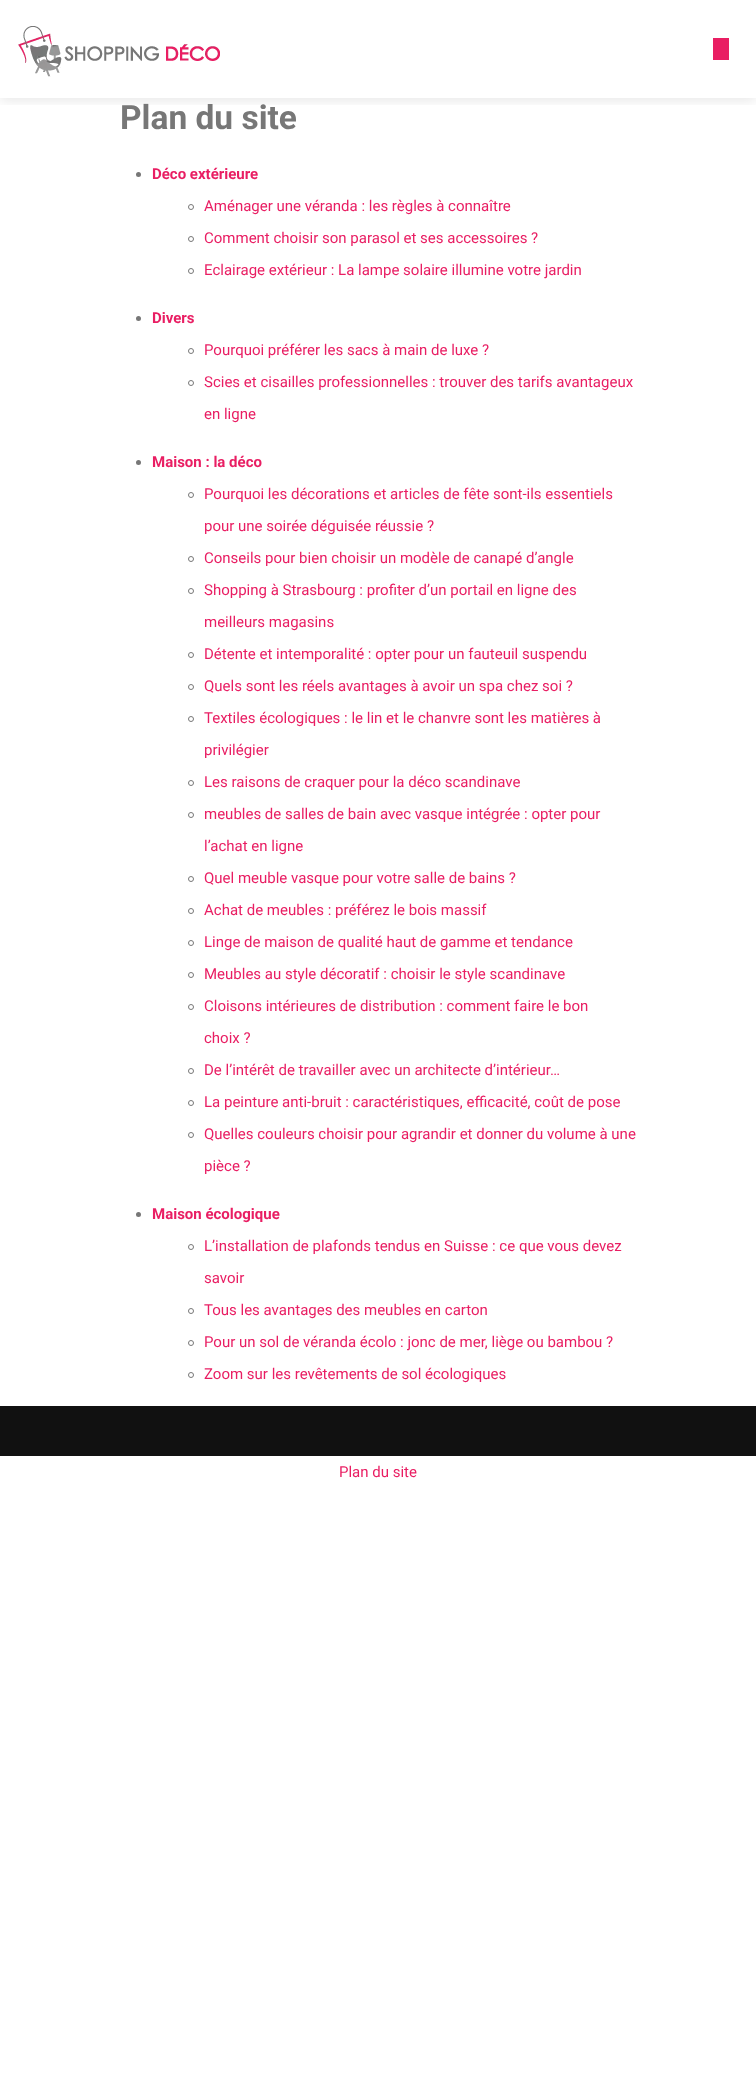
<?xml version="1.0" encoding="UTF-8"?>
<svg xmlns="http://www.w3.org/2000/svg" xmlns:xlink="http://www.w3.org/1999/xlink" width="756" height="2096">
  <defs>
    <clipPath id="clip1"><rect x="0" y="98" width="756" height="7" /></clipPath>
  </defs>
  <rect width="100%" height="100%" fill="#ffffff" />
  <g clip-path="url(#clip1)">
    <rect y="2" width="756" height="98" fill="#000000" fill-opacity="0.1" filter="blur(6.5px)" />
  </g>
  <image x="18" y="26" width="202" height="51" xlink:href="image1.png" />
  <rect x="713" y="38" width="16" height="22" fill="#e91e63" />
  <circle cx="138.5" cy="174.5" r="2.5" fill="#777777" />
  <circle cx="191" cy="207" r="2.5" fill="none" stroke="#777777" />
  <circle cx="191" cy="239" r="2.5" fill="none" stroke="#777777" />
  <circle cx="191" cy="271" r="2.5" fill="none" stroke="#777777" />
  <circle cx="138.5" cy="318.5" r="2.5" fill="#777777" />
  <circle cx="191" cy="351" r="2.5" fill="none" stroke="#777777" />
  <circle cx="191" cy="383" r="2.5" fill="none" stroke="#777777" />
  <circle cx="138.5" cy="462.5" r="2.5" fill="#777777" />
  <circle cx="191" cy="495" r="2.5" fill="none" stroke="#777777" />
  <circle cx="191" cy="559" r="2.5" fill="none" stroke="#777777" />
  <circle cx="191" cy="591" r="2.5" fill="none" stroke="#777777" />
  <circle cx="191" cy="655" r="2.5" fill="none" stroke="#777777" />
  <circle cx="191" cy="687" r="2.5" fill="none" stroke="#777777" />
  <circle cx="191" cy="719" r="2.5" fill="none" stroke="#777777" />
  <circle cx="191" cy="783" r="2.5" fill="none" stroke="#777777" />
  <circle cx="191" cy="815" r="2.5" fill="none" stroke="#777777" />
  <circle cx="191" cy="879" r="2.5" fill="none" stroke="#777777" />
  <circle cx="191" cy="911" r="2.5" fill="none" stroke="#777777" />
  <circle cx="191" cy="943" r="2.5" fill="none" stroke="#777777" />
  <circle cx="191" cy="975" r="2.5" fill="none" stroke="#777777" />
  <circle cx="191" cy="1007" r="2.5" fill="none" stroke="#777777" />
  <circle cx="191" cy="1071" r="2.5" fill="none" stroke="#777777" />
  <circle cx="191" cy="1103" r="2.5" fill="none" stroke="#777777" />
  <circle cx="191" cy="1135" r="2.5" fill="none" stroke="#777777" />
  <circle cx="138.5" cy="1214.5" r="2.5" fill="#777777" />
  <circle cx="191" cy="1247" r="2.5" fill="none" stroke="#777777" />
  <circle cx="191" cy="1311" r="2.5" fill="none" stroke="#777777" />
  <circle cx="191" cy="1343" r="2.5" fill="none" stroke="#777777" />
  <circle cx="191" cy="1375" r="2.5" fill="none" stroke="#777777" />
  <rect y="1406" width="756" height="50" fill="#111111" />
  <text x="120" y="129" style="font-family: Roboto; font-size: 33.5px; font-weight: bold; fill: #777777">Plan du site</text>
  <text x="152" y="179" style="font-family: Roboto; font-size: 15px; font-weight: bold; fill: #e91e63">Déco extérieure</text>
  <text x="204" y="211" style="font-family: Roboto; font-size: 15px; fill: #e91e63">Aménager une véranda : les règles à connaître</text>
  <text x="204" y="243" style="font-family: Roboto; font-size: 15px; fill: #e91e63">Comment choisir son parasol et ses accessoires ?</text>
  <text x="204" y="275" style="font-family: Roboto; font-size: 15px; fill: #e91e63">Eclairage extérieur : La lampe solaire illumine votre jardin</text>
  <text x="152" y="323" style="font-family: Roboto; font-size: 15px; font-weight: bold; fill: #e91e63">Divers</text>
  <text x="204" y="355" style="font-family: Roboto; font-size: 15px; fill: #e91e63">Pourquoi préférer les sacs à main de luxe ?</text>
  <text x="204" y="387" style="font-family: Roboto; font-size: 15px; fill: #e91e63">Scies et cisailles professionnelles : trouver des tarifs avantageux</text>
  <text x="204" y="419" style="font-family: Roboto; font-size: 15px; fill: #e91e63">en ligne</text>
  <text x="152" y="467" style="font-family: Roboto; font-size: 15px; font-weight: bold; fill: #e91e63">Maison : la déco</text>
  <text x="204" y="499" style="font-family: Roboto; font-size: 15px; fill: #e91e63">Pourquoi les décorations et articles de fête sont-ils essentiels</text>
  <text x="204" y="531" style="font-family: Roboto; font-size: 15px; fill: #e91e63">pour une soirée déguisée réussie ?</text>
  <text x="204" y="563" style="font-family: Roboto; font-size: 15px; fill: #e91e63">Conseils pour bien choisir un modèle de canapé d’angle</text>
  <text x="204" y="595" style="font-family: Roboto; font-size: 15px; fill: #e91e63">Shopping à Strasbourg : profiter d’un portail en ligne des</text>
  <text x="204" y="627" style="font-family: Roboto; font-size: 15px; fill: #e91e63">meilleurs magasins</text>
  <text x="204" y="659" style="font-family: Roboto; font-size: 15px; fill: #e91e63">Détente et intemporalité : opter pour un fauteuil suspendu</text>
  <text x="204" y="691" style="font-family: Roboto; font-size: 15px; fill: #e91e63">Quels sont les réels avantages à avoir un spa chez soi ?</text>
  <text x="204" y="723" style="font-family: Roboto; font-size: 15px; fill: #e91e63">Textiles écologiques : le lin et le chanvre sont les matières à</text>
  <text x="204" y="755" style="font-family: Roboto; font-size: 15px; fill: #e91e63">privilégier</text>
  <text x="204" y="787" style="font-family: Roboto; font-size: 15px; fill: #e91e63">Les raisons de craquer pour la déco scandinave</text>
  <text x="204" y="819" style="font-family: Roboto; font-size: 15px; fill: #e91e63">meubles de salles de bain avec vasque intégrée : opter pour</text>
  <text x="204" y="851" style="font-family: Roboto; font-size: 15px; fill: #e91e63">l’achat en ligne</text>
  <text x="204" y="883" style="font-family: Roboto; font-size: 15px; fill: #e91e63">Quel meuble vasque pour votre salle de bains ?</text>
  <text x="204" y="915" style="font-family: Roboto; font-size: 15px; fill: #e91e63">Achat de meubles : préférez le bois massif</text>
  <text x="204" y="947" style="font-family: Roboto; font-size: 15px; fill: #e91e63">Linge de maison de qualité haut de gamme et tendance</text>
  <text x="204" y="979" style="font-family: Roboto; font-size: 15px; fill: #e91e63">Meubles au style décoratif : choisir le style scandinave</text>
  <text x="204" y="1011" style="font-family: Roboto; font-size: 15px; fill: #e91e63">Cloisons intérieures de distribution : comment faire le bon</text>
  <text x="204" y="1043" style="font-family: Roboto; font-size: 15px; fill: #e91e63">choix ?</text>
  <text x="204" y="1075" style="font-family: Roboto; font-size: 15px; fill: #e91e63">De l’intérêt de travailler avec un architecte d’intérieur…</text>
  <text x="204" y="1107" style="font-family: Roboto; font-size: 15px; fill: #e91e63">La peinture anti-bruit : caractéristiques, efficacité, coût de pose</text>
  <text x="204" y="1139" style="font-family: Roboto; font-size: 15px; fill: #e91e63">Quelles couleurs choisir pour agrandir et donner du volume à une</text>
  <text x="204" y="1171" style="font-family: Roboto; font-size: 15px; fill: #e91e63">pièce ?</text>
  <text x="152" y="1219" style="font-family: Roboto; font-size: 15px; font-weight: bold; fill: #e91e63">Maison écologique</text>
  <text x="204" y="1251" style="font-family: Roboto; font-size: 15px; fill: #e91e63">L’installation de plafonds tendus en Suisse : ce que vous devez</text>
  <text x="204" y="1283" style="font-family: Roboto; font-size: 15px; fill: #e91e63">savoir</text>
  <text x="204" y="1315" style="font-family: Roboto; font-size: 15px; fill: #e91e63">Tous les avantages des meubles en carton</text>
  <text x="204" y="1347" style="font-family: Roboto; font-size: 15px; fill: #e91e63">Pour un sol de véranda écolo : jonc de mer, liège ou bambou ?</text>
  <text x="204" y="1379" style="font-family: Roboto; font-size: 15px; fill: #e91e63">Zoom sur les revêtements de sol écologiques</text>
  <text x="339" y="1477" style="font-family: Roboto; font-size: 15px; fill: #e91e63">Plan du site</text>
</svg>
